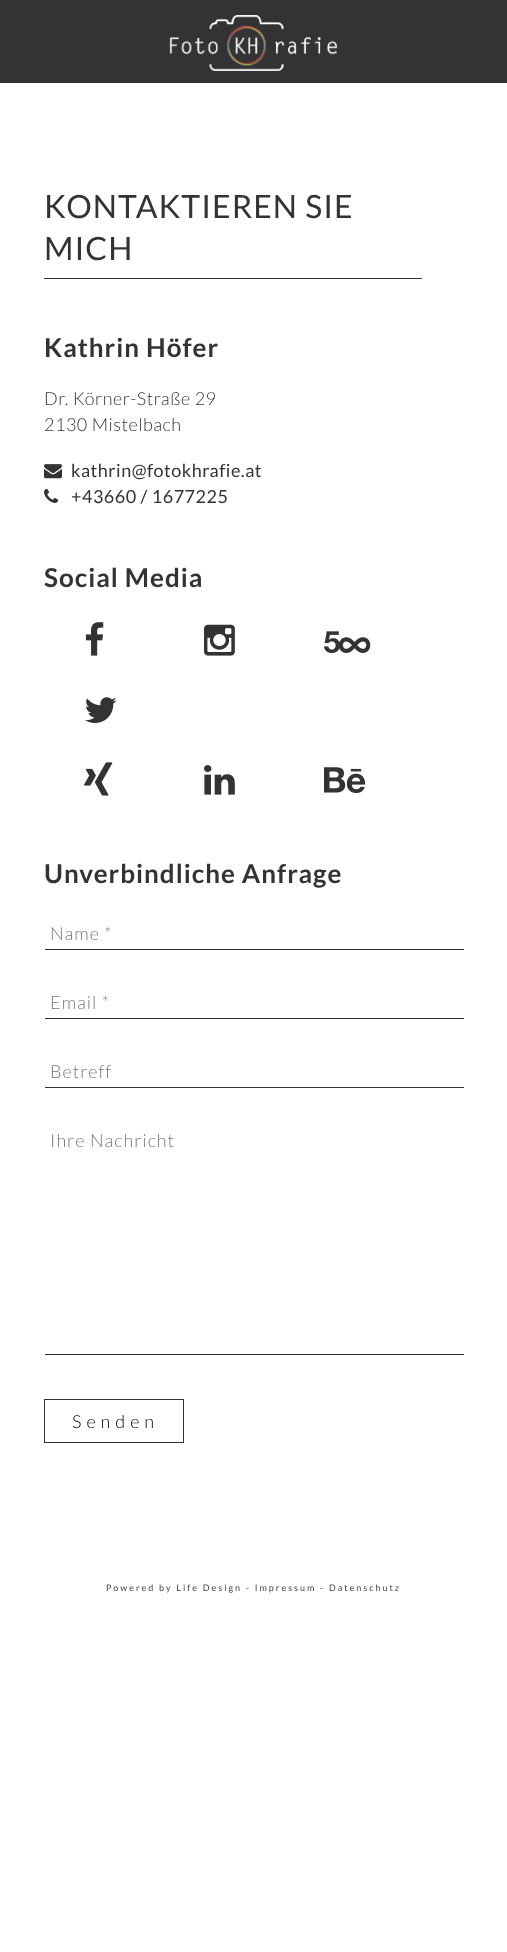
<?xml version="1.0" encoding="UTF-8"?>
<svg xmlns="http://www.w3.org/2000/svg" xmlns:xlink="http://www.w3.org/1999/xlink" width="507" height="1952">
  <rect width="100%" height="100%" fill="#ffffff" />
  <rect width="507" height="83" fill="#333333" />
  <image x="169" y="15" width="168" height="56" xlink:href="image1.png" />
  <rect x="44" y="278" width="378" height="1" fill="#333333" />
  <image x="44" y="464" width="18" height="15" xlink:href="image2.png" />
  <image x="44" y="488" width="15" height="15" xlink:href="image3.png" />
  <image x="85" y="622" width="19" height="34" xlink:href="image4.png" />
  <image x="204" y="624" width="31" height="32" xlink:href="image5.png" />
  <image x="324" y="631" width="47" height="22" xlink:href="image6.png" />
  <image x="85" y="697" width="32" height="26" xlink:href="image7.png" />
  <image x="84" y="762" width="29" height="34" xlink:href="image8.png" />
  <image x="204" y="765" width="31" height="30" xlink:href="image9.png" />
  <image x="324" y="767" width="42" height="26" xlink:href="image10.png" />
  <rect x="44" y="949" width="420" height="1" fill="#333333" />
  <rect x="44" y="949" width="1" height="1" fill="#ffffff" />
  <rect x="44" y="1018" width="420" height="1" fill="#333333" />
  <rect x="44" y="1018" width="1" height="1" fill="#ffffff" />
  <rect x="44" y="1087" width="420" height="1" fill="#333333" />
  <rect x="44" y="1087" width="1" height="1" fill="#ffffff" />
  <rect x="44" y="1354" width="420" height="1" fill="#333333" />
  <rect x="44" y="1354" width="1" height="1" fill="#ffffff" />
  <rect x="44.5" y="1399.5" width="139" height="43" fill="none" stroke="#333333" />
  <text x="44" y="218" style="font-family: Lato; font-size: 32px; letter-spacing: 1px; fill: #333333">KONTAKTIEREN SIE</text>
  <text x="44" y="260" style="font-family: Lato; font-size: 32px; letter-spacing: 1px; fill: #333333">MICH</text>
  <text x="44" y="357" style="font-family: Lato; font-size: 26px; font-weight: bold; letter-spacing: 1px; fill: #333333">Kathrin Höfer</text>
  <text x="44" y="405" style="font-family: Lato; font-size: 18px; font-weight: 300; letter-spacing: 0.5px; fill: #333333">Dr. Körner-Straße 29</text>
  <text x="44" y="431" style="font-family: Lato; font-size: 18px; font-weight: 300; letter-spacing: 0.5px; fill: #333333">2130 Mistelbach</text>
  <text x="71" y="477" style="font-family: Lato; font-size: 18px; letter-spacing: 0.5px; fill: #333333">kathrin@fotokhrafie.at</text>
  <text x="71" y="503" style="font-family: Lato; font-size: 18px; letter-spacing: 0.5px; fill: #333333">+43660 / 1677225</text>
  <text x="44" y="587" style="font-family: Lato; font-size: 26px; font-weight: bold; letter-spacing: 1px; fill: #333333">Social Media</text>
  <text x="44" y="883" style="font-family: Lato; font-size: 26px; font-weight: bold; letter-spacing: 1px; fill: #333333">Unverbindliche Anfrage</text>
  <text x="50" y="940" style="font-family: Lato; font-size: 18px; font-weight: 300; letter-spacing: 1px; fill: #757575">Name *</text>
  <text x="50" y="1009" style="font-family: Lato; font-size: 18px; font-weight: 300; letter-spacing: 1px; fill: #757575">Email *</text>
  <text x="50" y="1078" style="font-family: Lato; font-size: 18px; font-weight: 300; letter-spacing: 1px; fill: #757575">Betreff</text>
  <text x="50" y="1147" style="font-family: Lato; font-size: 18px; font-weight: 300; letter-spacing: 1px; fill: #757575">Ihre Nachricht</text>
  <text x="72" y="1428" style="font-family: Lato; font-size: 18px; font-weight: 300; letter-spacing: 5px; fill: #000000">Senden</text>
  <text x="106" y="1591" style="font-family: Lato; font-size: 9px; letter-spacing: 2px; fill: #444444">Powered by Life Design - Impressum - Datenschutz</text>
</svg>
